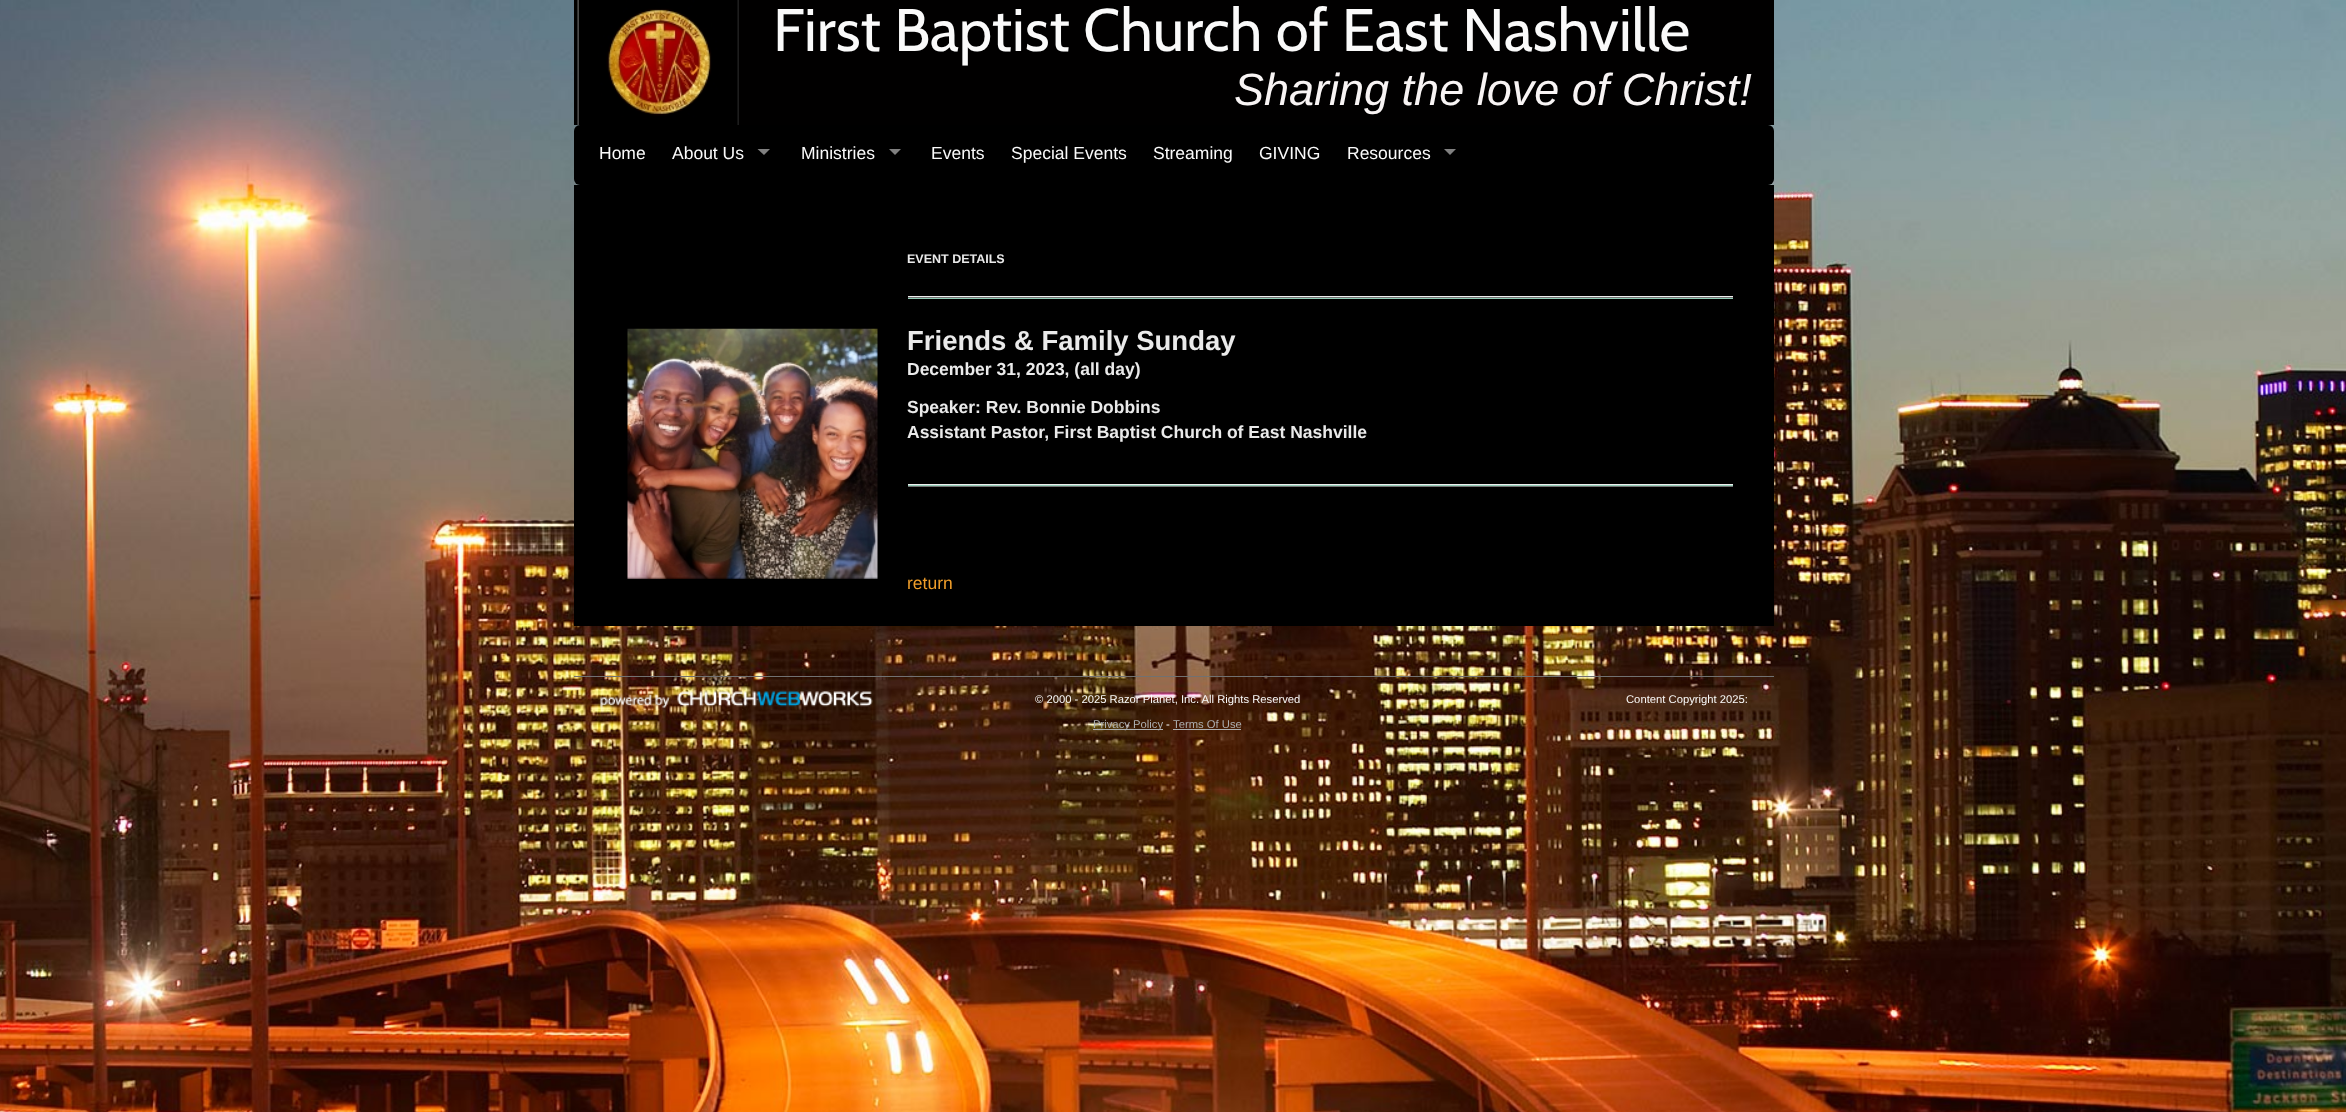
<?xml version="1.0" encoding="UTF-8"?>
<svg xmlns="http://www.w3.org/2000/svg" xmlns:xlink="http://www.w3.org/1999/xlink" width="2346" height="1112">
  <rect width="100%" height="100%" fill="#ffffff" />
  <image x="0" y="0" width="2346" height="1112" xlink:href="image1.png" />
  <rect x="574" width="1200" height="125" fill="#010000" />
  <image x="577" y="0" width="162" height="125" xlink:href="image2.png" />
  <rect x="574" y="125" width="1200" height="60" rx="6" fill="#000000" />
  <path d="M 757.5 149 h 12.5 l -6 6 z" fill="#808080" />
  <path d="M 889 149 h 12 l -6 6 z" fill="#808080" />
  <path d="M 1444 149 h 12 l -6 6 z" fill="#808080" />
  <rect x="574" y="185" width="1200" height="441" fill="#000000" />
  <rect x="908" y="297" width="825" height="1" fill="#717171" />
  <rect x="908" y="296" width="825" height="1" fill="#eeeeee" />
  <rect x="908" y="298" width="825" height="1" fill="#93cdb7" />
  <image x="627" y="328" width="251" height="251" xlink:href="image3.png" />
  <rect x="908" y="486" width="825" height="1" fill="#717171" />
  <rect x="908" y="484" width="825" height="1" fill="#eeeeee" />
  <rect x="908" y="485" width="825" height="1" fill="#93cdb7" />
  <rect x="574" y="676" width="1200" height="1" fill="#717171" />
  <image x="599" y="691" width="274" height="17" xlink:href="image4.png" />
  <rect x="1093" y="729" width="70" height="1" fill="#adafb1" />
  <rect x="1173" y="729" width="68" height="1" fill="#adafb1" />
  <text x="773" y="51" style="font-family: Cabin; font-size: 60px; fill: #fafafa">First Baptist Church of East Nashville</text>
  <text x="1234" y="105" style="font-family: Liberation Sans; font-size: 45px; font-style: italic; fill: #f8f4f4">Sharing the love of Christ!</text>
  <text x="599" y="159" style="font-family: Liberation Sans; font-size: 17.5px; fill: #fafafa">Home</text>
  <text x="672" y="159" style="font-family: Liberation Sans; font-size: 17.5px; fill: #fafafa">About Us</text>
  <text x="801" y="159" style="font-family: Liberation Sans; font-size: 17.5px; fill: #fafafa">Ministries</text>
  <text x="931" y="159" style="font-family: Liberation Sans; font-size: 17.5px; fill: #fafafa">Events</text>
  <text x="1011" y="159" style="font-family: Liberation Sans; font-size: 17.5px; fill: #fafafa">Special Events</text>
  <text x="1153" y="159" style="font-family: Liberation Sans; font-size: 17.5px; fill: #fafafa">Streaming</text>
  <text x="1259" y="159" style="font-family: Liberation Sans; font-size: 17.5px; fill: #fafafa">GIVING</text>
  <text x="1347" y="159" style="font-family: Liberation Sans; font-size: 17.5px; fill: #fafafa">Resources</text>
  <text x="907" y="263" style="font-family: Liberation Sans; font-size: 12.5px; font-weight: bold; fill: #eaeaea">EVENT DETAILS</text>
  <text x="907" y="350" style="font-family: Liberation Sans; font-size: 27.5px; font-weight: bold; fill: #eaeaea">Friends &amp; Family Sunday</text>
  <text x="907" y="375" style="font-family: Liberation Sans; font-size: 17.5px; font-weight: bold; fill: #eaeaea">December 31, 2023, (all day)</text>
  <text x="907" y="413" style="font-family: Liberation Sans; font-size: 17.5px; font-weight: bold; fill: #eaeaea">Speaker: Rev. Bonnie Dobbins</text>
  <text x="907" y="438" style="font-family: Liberation Sans; font-size: 17.5px; font-weight: bold; fill: #eaeaea">Assistant Pastor, First Baptist Church of East Nashville</text>
  <text x="907" y="589" style="font-family: Liberation Sans; font-size: 17.5px; fill: #f09e2a">return</text>
  <text x="1035" y="703" style="font-family: Liberation Sans; font-size: 11.25px; fill: #fafafa">© 2000 - 2025 Razor Planet, Inc. All Rights Reserved</text>
  <text x="1093" y="728" style="font-family: Liberation Sans; font-size: 11.25px; fill: #adafb1">Privacy Policy</text>
  <text x="1166" y="728" style="font-family: Liberation Sans; font-size: 11.25px; fill: #fafafa">-</text>
  <text x="1173" y="728" style="font-family: Liberation Sans; font-size: 11.25px; fill: #adafb1">Terms Of Use</text>
  <text x="1626" y="703" style="font-family: Liberation Sans; font-size: 11.25px; fill: #fafafa">Content Copyright 2025:</text>
</svg>
